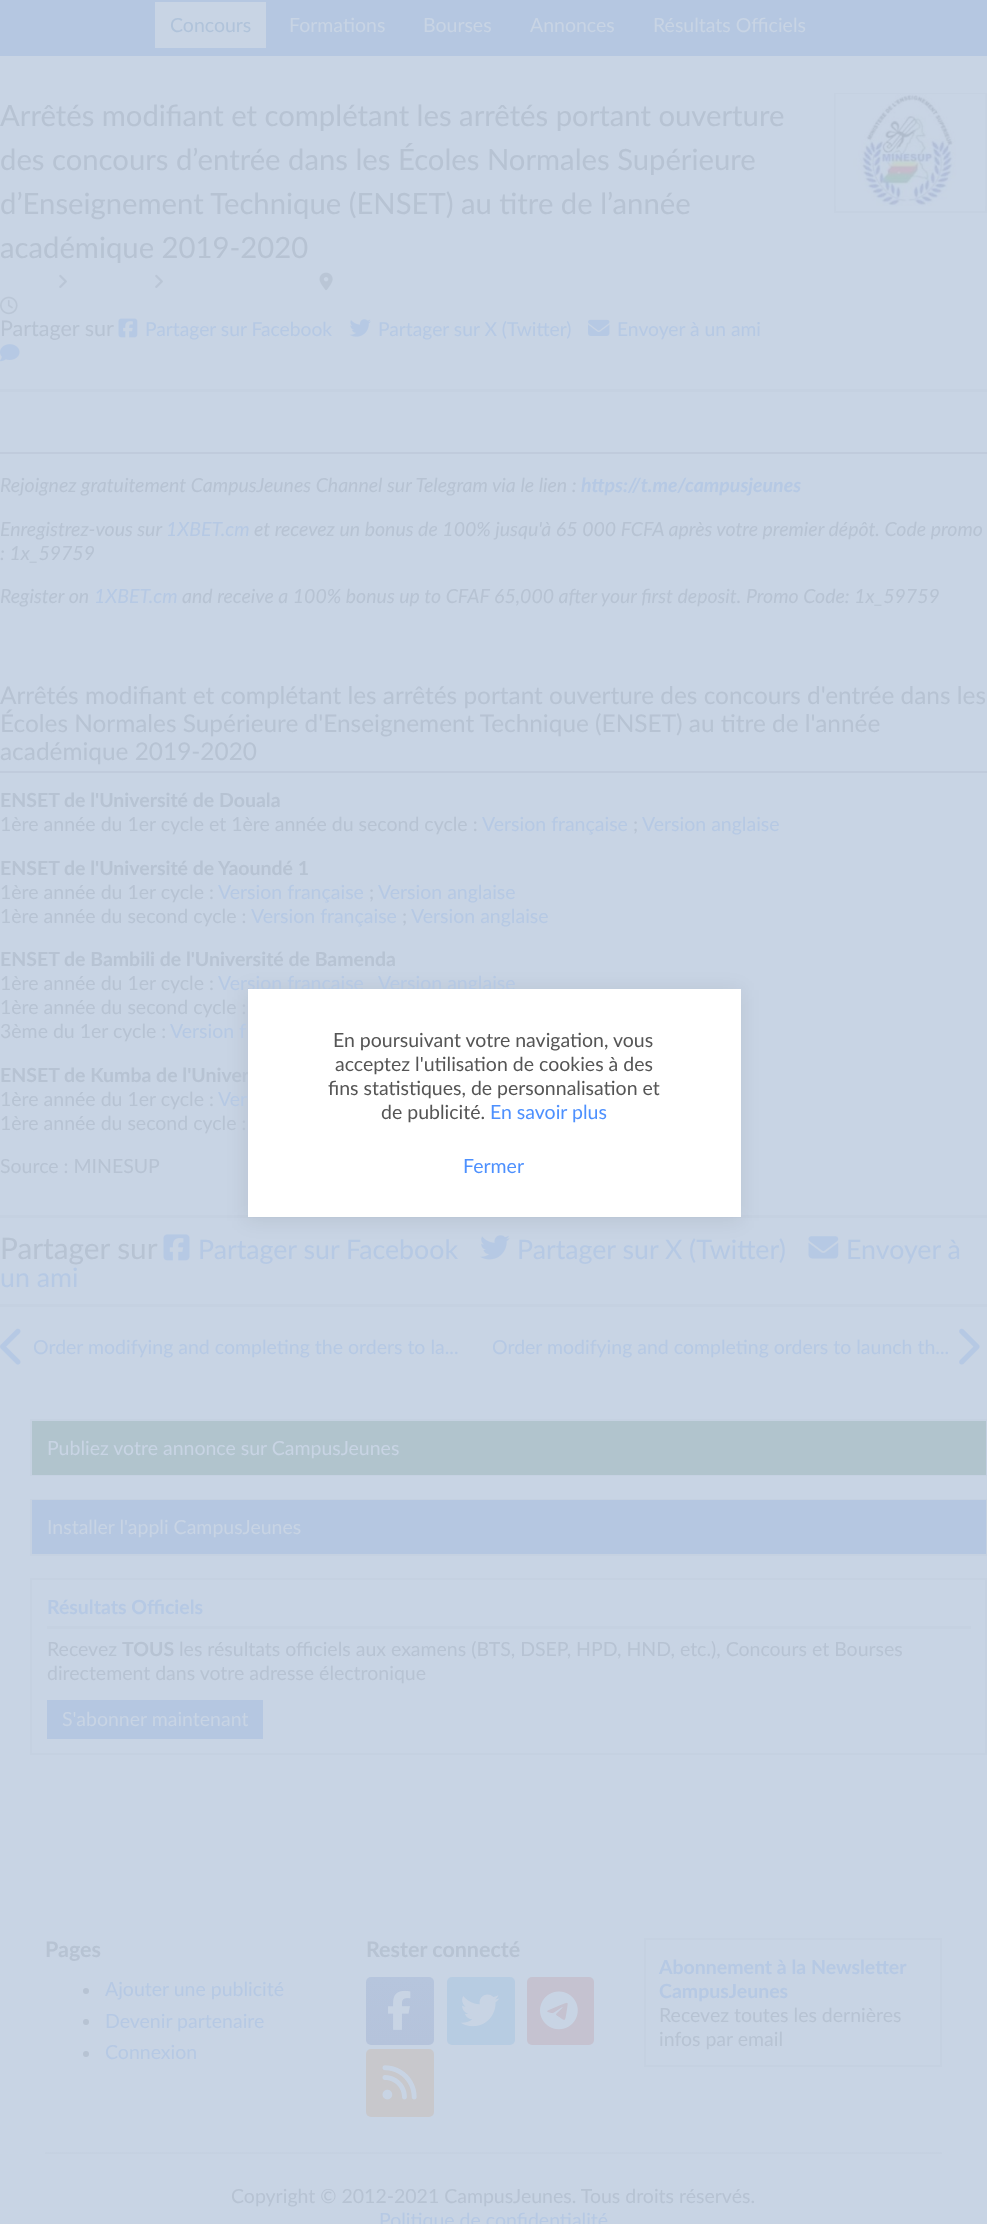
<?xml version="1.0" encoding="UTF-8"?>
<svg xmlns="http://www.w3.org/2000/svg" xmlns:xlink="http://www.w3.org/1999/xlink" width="987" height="2224">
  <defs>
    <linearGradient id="g1" gradientUnits="userSpaceOnUse" x1="400" y1="1977" x2="400" y2="2045"><stop offset="0" stop-color="#b6c5dd" /><stop offset="1" stop-color="#b5c3db" /></linearGradient>
    <linearGradient id="g2" gradientUnits="userSpaceOnUse" x1="494" y1="2145" x2="494" y2="2154"><stop offset="0" stop-color="#c8d3e4" /><stop offset="1" stop-color="#c5d1e1" /></linearGradient>
  </defs>
  <rect width="100%" height="100%" fill="#c8d4e4" />
  <rect width="987" height="56" fill="#b5c7e1" />
  <rect x="155" y="2" width="111" height="46" fill="#c8d4e4" />
  <rect x="835" y="94" width="151" height="118" fill="none" stroke="#c5d1e1" stroke-width="2" />
  <image x="835" y="94" width="151" height="113" xlink:href="image1.png" />
  <image x="59" y="274" width="8" height="14" xlink:href="image2.png" />
  <image x="155" y="274" width="8" height="14" xlink:href="image2.png" />
  <image x="319" y="272" width="14" height="19" xlink:href="image3.png" />
  <image x="0" y="296" width="18" height="19" xlink:href="image4.png" />
  <image x="118" y="318" width="20" height="20" xlink:href="image5.png" />
  <image x="349" y="319" width="22" height="18" xlink:href="image6.png" />
  <image x="588" y="319" width="22" height="17" xlink:href="image7.png" />
  <image x="0" y="344" width="20" height="18" xlink:href="image8.png" />
  <rect y="389" width="987" height="3" fill="#c5d1e1" />
  <rect y="452" width="987" height="2" fill="#c0cbdc" />
  <rect y="771" width="987" height="2" fill="#c0cbdc" />
  <rect y="1215" width="987" height="3" fill="#c5d1e1" />
  <image x="480" y="1235" width="30" height="25" xlink:href="image9.png" />
  <image x="808" y="1236" width="31" height="23" xlink:href="image10.png" />
  <image x="163" y="1234" width="27" height="27" xlink:href="image11.png" />
  <rect y="1304" width="987" height="3" fill="#c5d1e1" />
  <image x="0" y="1328" width="21" height="37" xlink:href="image12.png" />
  <image x="959" y="1328" width="21" height="37" xlink:href="image13.png" />
  <rect x="31" y="1420" width="955" height="55" fill="none" stroke="#c5d1e1" stroke-width="2" />
  <rect x="32" y="1421" width="954" height="54" fill="#b1c4cd" />
  <rect x="31" y="1500" width="955" height="55" fill="none" stroke="#c5d1e1" stroke-width="2" />
  <rect x="32" y="1500" width="954" height="54" fill="#b5c7e1" />
  <rect x="31" y="1579" width="955" height="175" fill="none" stroke="#c5d1e1" stroke-width="2" />
  <rect x="47" y="1626" width="924" height="3" fill="#c5d1e1" />
  <rect x="47" y="1700" width="216" height="39" fill="#b5c7e1" />
  <rect x="245" y="990" width="496" height="231" fill="#000000" fill-opacity="0.07" filter="blur(10px)" />
  <circle cx="86" cy="1991" r="3" fill="#b7c3d3" />
  <circle cx="86" cy="2022" r="3" fill="#b7c3d3" />
  <circle cx="86" cy="2054" r="3" fill="#b7c3d3" />
  <rect x="366" y="1977" width="68" height="68" rx="5" fill="url(#g1)" />
  <image x="388" y="1990" width="23" height="40" xlink:href="image14.png" />
  <rect x="447" y="1977" width="68" height="68" rx="5" fill="#b7cce2" />
  <image x="460" y="1994" width="40" height="33" xlink:href="image15.png" />
  <rect x="527" y="1977" width="67" height="68" rx="5" fill="#c5c2d0" />
  <image x="540" y="1991" width="38" height="39" xlink:href="image16.png" />
  <rect x="366" y="2049" width="68" height="68" rx="5" fill="#c8c8cc" />
  <image x="382" y="2065" width="35" height="35" xlink:href="image17.png" />
  <rect x="645" y="1939" width="296" height="127" fill="none" stroke="#c5d1e1" stroke-width="2" />
  <rect x="45" y="2152" width="897" height="2" fill="url(#g2)" />
  <text x="170" y="32" style="font-family: Lato; font-size: 19.5px; fill: #b0c3da">Concours</text>
  <text x="289" y="32" style="font-family: Lato; font-size: 19.5px; fill: #c8d4e4">Formations</text>
  <text x="423" y="32" style="font-family: Lato; font-size: 19.5px; fill: #c8d4e4">Bourses</text>
  <text x="530" y="32" style="font-family: Lato; font-size: 19.5px; fill: #c8d4e4">Annonces</text>
  <text x="653" y="32" style="font-family: Lato; font-size: 19.5px; fill: #c8d4e4">Résultats Officiels</text>
  <text x="0" y="126" style="font-family: Lato; font-size: 29.25px; fill: #b7c3d3">Arrêtés modifiant et complétant les arrêtés portant ouverture</text>
  <text x="0" y="170" style="font-family: Lato; font-size: 29.25px; fill: #b7c3d3">des concours d’entrée dans les Écoles Normales Supérieure</text>
  <text x="0" y="214" style="font-family: Lato; font-size: 29.25px; fill: #b7c3d3">d’Enseignement Technique (ENSET) au titre de l’année</text>
  <text x="0" y="258" style="font-family: Lato; font-size: 29.25px; fill: #b7c3d3">académique 2019-2020</text>
  <text x="0" y="336" style="font-family: Lato; font-size: 21.5px; fill: #b7c3d3">Partager sur</text>
  <text x="145" y="336" style="font-family: Lato; font-size: 19.25px; fill: #b6c9e4">Partager sur Facebook</text>
  <text x="378" y="336" style="font-family: Lato; font-size: 19.25px; fill: #b6c9e4">Partager sur X (Twitter)</text>
  <text x="617" y="336" style="font-family: Lato; font-size: 19.25px; fill: #b6c9e4">Envoyer à un ami</text>
  <text x="0" y="492" style="font-family: Lato; font-size: 19.5px; font-style: italic; fill: #b7c3d3">Rejoignez gratuitement CampusJeunes Channel sur Telegram via le lien :</text>
  <text x="581" y="492" style="font-family: Lato; font-size: 19.5px; font-weight: bold; font-style: italic; fill: #b6c9e4">https://t.me/campusjeunes</text>
  <text x="0" y="536" style="font-family: Lato; font-size: 19.5px; font-style: italic; fill: #b7c3d3">Enregistrez-vous sur</text>
  <text x="166" y="536" style="font-family: Lato; font-size: 19.5px; font-style: italic; fill: #b6c9e4">1XBET.cm</text>
  <text x="254" y="536" style="font-family: Lato; font-size: 19.5px; font-style: italic; fill: #b7c3d3">et recevez un bonus de 100% jusqu'à 65 000 FCFA après votre premier dépôt. Code promo</text>
  <text x="0" y="560" style="font-family: Lato; font-size: 19.5px; font-style: italic; fill: #b7c3d3">: 1x_59759</text>
  <text x="0" y="603" style="font-family: Lato; font-size: 19.5px; font-style: italic; fill: #b7c3d3">Register on</text>
  <text x="94" y="603" style="font-family: Lato; font-size: 19.5px; font-style: italic; fill: #b6c9e4">1XBET.cm</text>
  <text x="182" y="603" style="font-family: Lato; font-size: 19.5px; font-style: italic; fill: #b7c3d3">and receive a 100% bonus up to CFAF 65,000 after your first deposit. Promo Code: 1x_59759</text>
  <text x="0" y="704" style="font-family: Lato; font-size: 24.4px; fill: #b7c3d3">Arrêtés modifiant et complétant les arrêtés portant ouverture des concours d'entrée dans les</text>
  <text x="0" y="732" style="font-family: Lato; font-size: 24.4px; fill: #b7c3d3">Écoles Normales Supérieure d'Enseignement Technique (ENSET) au titre de l'année</text>
  <text x="0" y="760" style="font-family: Lato; font-size: 24.4px; fill: #b7c3d3">académique 2019-2020</text>
  <text x="0" y="807" style="font-family: Lato; font-size: 19.5px; font-weight: bold; fill: #b7c3d3">ENSET de l'Université de Douala</text>
  <text x="0" y="831" style="font-family: Lato; font-size: 19.5px; fill: #b7c3d3">1ère année du 1er cycle et 1ère année du second cycle :</text>
  <text x="482" y="831" style="font-family: Lato; font-size: 19.5px; fill: #b6c9e4">Version française</text>
  <text x="633" y="831" style="font-family: Lato; font-size: 19.5px; fill: #b7c3d3">;</text>
  <text x="642" y="831" style="font-family: Lato; font-size: 19.5px; fill: #b6c9e4">Version anglaise</text>
  <text x="0" y="875" style="font-family: Lato; font-size: 19.5px; font-weight: bold; fill: #b7c3d3">ENSET de l'Université de</text>
  <text x="218" y="875" style="font-family: Lato; font-size: 19.5px; font-weight: bold; fill: #b7c3d3">Yaoundé 1</text>
  <text x="0" y="899" style="font-family: Lato; font-size: 19.5px; fill: #b7c3d3">1ère année du 1er cycle :</text>
  <text x="218" y="899" style="font-family: Lato; font-size: 19.5px; fill: #b6c9e4">Version française</text>
  <text x="369" y="899" style="font-family: Lato; font-size: 19.5px; fill: #b7c3d3">;</text>
  <text x="378" y="899" style="font-family: Lato; font-size: 19.5px; fill: #b6c9e4">Version anglaise</text>
  <text x="0" y="923" style="font-family: Lato; font-size: 19.5px; fill: #b7c3d3">1ère année du second cycle :</text>
  <text x="251" y="923" style="font-family: Lato; font-size: 19.5px; fill: #b6c9e4">Version française</text>
  <text x="402" y="923" style="font-family: Lato; font-size: 19.5px; fill: #b7c3d3">;</text>
  <text x="411" y="923" style="font-family: Lato; font-size: 19.5px; fill: #b6c9e4">Version anglaise</text>
  <text x="0" y="966" style="font-family: Lato; font-size: 19.5px; font-weight: bold; fill: #b7c3d3">ENSET de Bambili de l'Université de Bamenda</text>
  <text x="0" y="990" style="font-family: Lato; font-size: 19.5px; fill: #b7c3d3">1ère année du 1er cycle :</text>
  <text x="218" y="990" style="font-family: Lato; font-size: 19.5px; fill: #b6c9e4">Version française</text>
  <text x="378" y="990" style="font-family: Lato; font-size: 19.5px; fill: #b6c9e4">Version anglaise</text>
  <text x="0" y="1014" style="font-family: Lato; font-size: 19.5px; fill: #b7c3d3">1ère année du second cycle :</text>
  <text x="0" y="1038" style="font-family: Lato; font-size: 19.5px; fill: #b7c3d3">3ème du 1er cycle :</text>
  <text x="170" y="1038" style="font-family: Lato; font-size: 19.5px; fill: #b6c9e4">Version f</text>
  <text x="0" y="1082" style="font-family: Lato; font-size: 19.5px; font-weight: bold; fill: #b7c3d3">ENSET de Kumba de l'Univer</text>
  <text x="0" y="1106" style="font-family: Lato; font-size: 19.5px; fill: #b7c3d3">1ère année du 1er cycle :</text>
  <text x="218" y="1106" style="font-family: Lato; font-size: 19.5px; fill: #b6c9e4">Ver</text>
  <text x="0" y="1130" style="font-family: Lato; font-size: 19.5px; fill: #b7c3d3">1ère année du second cycle :</text>
  <text x="0" y="1173" style="font-family: Lato; font-size: 19.5px; fill: #b7c3d3">Source : MINESUP</text>
  <text x="0" y="1259" style="font-family: Lato; font-size: 29.75px; fill: #b7c3d3">Partager sur</text>
  <text x="517" y="1259" style="font-family: Lato; font-size: 26.75px; fill: #b6c9e4">Partager sur X (Twitter)</text>
  <text x="846" y="1259" style="font-family: Lato; font-size: 26.75px; fill: #b6c9e4">Envoyer à</text>
  <text x="0" y="1287" style="font-family: Lato; font-size: 26.75px; fill: #b6c9e4">un ami</text>
  <text x="198" y="1259" style="font-family: Lato; font-size: 26.75px; fill: #b6c9e4">Partager sur Facebook</text>
  <text x="33" y="1354" style="font-family: Lato; font-size: 19.5px; fill: #b6c9e4">Order modifying and completing the orders to la...</text>
  <text x="492" y="1354" style="font-family: Lato; font-size: 19.5px; fill: #b6c9e4">Order modifying and completing orders to launch th...</text>
  <text x="47" y="1455" style="font-family: Lato; font-size: 19.5px; fill: #c8d4e4">Publiez votre annonce sur CampusJeunes</text>
  <text x="47" y="1534" style="font-family: Lato; font-size: 19.5px; fill: #c8d4e4">Installer l'appli CampusJeunes</text>
  <text x="47" y="1614" style="font-family: Lato; font-size: 19.5px; font-weight: bold; fill: #b6c9e4">Résultats Officiels</text>
  <text x="47" y="1656" style="font-family: Lato; font-size: 19.5px; fill: #b7c3d3">Recevez</text>
  <text x="122" y="1656" style="font-family: Lato; font-size: 19.5px; font-weight: bold; fill: #b7c3d3">TOUS</text>
  <text x="179" y="1656" style="font-family: Lato; font-size: 19.5px; fill: #b7c3d3">les résultats officiels aux examens (BTS, DSEP, HPD, HND, etc.), Concours et Bourses</text>
  <text x="47" y="1680" style="font-family: Lato; font-size: 19.5px; fill: #b7c3d3">directement dans votre adresse électronique</text>
  <text x="62" y="1726" style="font-family: Lato; font-size: 19.5px; fill: #c8d4e4">S'abonner maintenant</text>
  <rect x="248" y="989" width="493" height="228" fill="#ffffff" />
  <text x="333" y="1047" style="font-family: Lato; font-size: 19.5px; fill: #555555">En poursuivant votre navigation, vous</text>
  <text x="335" y="1071" style="font-family: Lato; font-size: 19.5px; fill: #555555">acceptez l'utilisation de cookies à des</text>
  <text x="328" y="1095" style="font-family: Lato; font-size: 19.5px; fill: #555555">fins statistiques, de personnalisation et</text>
  <text x="381" y="1119" style="font-family: Lato; font-size: 19.5px; fill: #555555">de publicité.</text>
  <text x="490" y="1119" style="font-family: Lato; font-size: 19.5px; fill: #4d90fe">En savoir plus</text>
  <text x="463" y="1173" style="font-family: Lato; font-size: 19.5px; fill: #4d90fe">Fermer</text>
  <text x="45" y="1957" style="font-family: Lato; font-size: 21.5px; font-weight: bold; fill: #b7c3d3">Pages</text>
  <text x="105" y="1996" style="font-family: Lato; font-size: 19.5px; fill: #b6c9e4">Ajouter une publicité</text>
  <text x="105" y="2028" style="font-family: Lato; font-size: 19.5px; fill: #b6c9e4">Devenir partenaire</text>
  <text x="105" y="2059" style="font-family: Lato; font-size: 19.5px; fill: #b6c9e4">Connexion</text>
  <text x="366" y="1957" style="font-family: Lato; font-size: 21.5px; font-weight: bold; fill: #b7c3d3">Rester connecté</text>
  <text x="659" y="1974" style="font-family: Lato; font-size: 19.5px; font-weight: bold; fill: #b6c9e4">Abonnement à la Newsletter</text>
  <text x="659" y="1998" style="font-family: Lato; font-size: 19.5px; font-weight: bold; fill: #b6c9e4">CampusJeunes</text>
  <text x="659" y="2022" style="font-family: Lato; font-size: 19.5px; fill: #b7c3d3">Recevez toutes les dernières</text>
  <text x="659" y="2046" style="font-family: Lato; font-size: 19.5px; fill: #b7c3d3">infos par email</text>
  <text x="231" y="2203" style="font-family: Lato; font-size: 19.5px; fill: #b7c3d3">Copyright © 2012-2021 CampusJeunes. Tous droits réservés.</text>
  <text x="379" y="2227" style="font-family: Lato; font-size: 19.5px; fill: #b6c9e4">Politique de confidentialité</text>
</svg>
